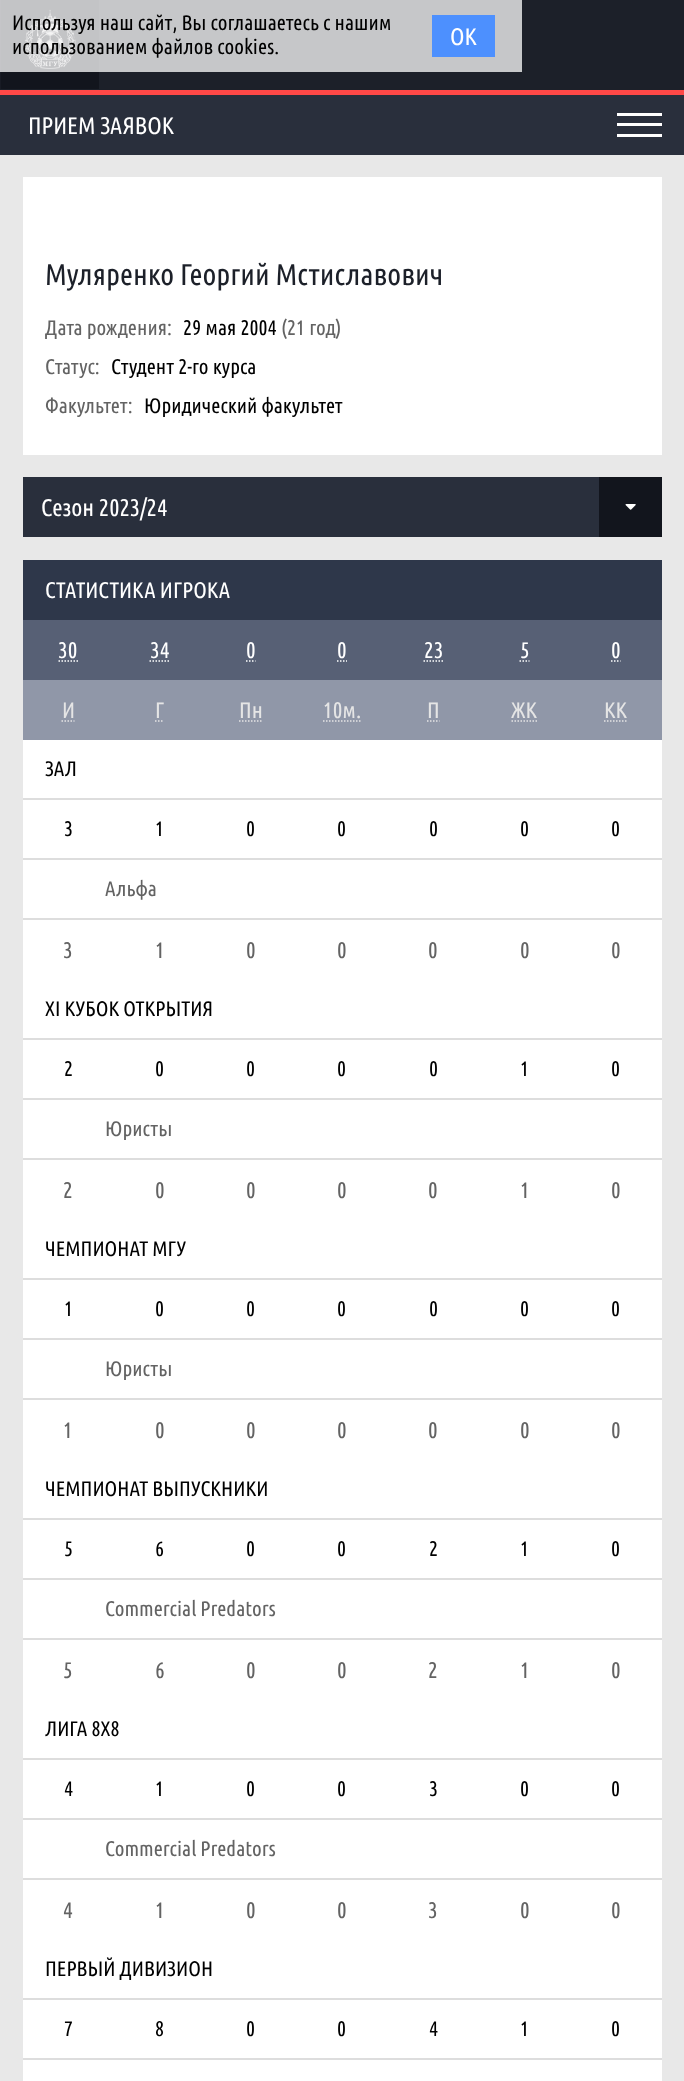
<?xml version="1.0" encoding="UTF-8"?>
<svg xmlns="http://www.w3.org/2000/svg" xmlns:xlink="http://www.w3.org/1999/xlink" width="684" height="2081">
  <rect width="100%" height="100%" fill="#e8e8e8" />
  <rect width="684" height="90" fill="#1c2029" />
  <image x="0" y="0" width="99" height="89" xlink:href="image1.png" />
  <rect width="522" height="72" fill="#ffffff" fill-opacity="0.75" />
  <rect x="432" y="15" width="63" height="42" fill="#4d90fe" />
  <rect y="95" width="684" height="60" fill="#292f3c" />
  <rect y="90" width="684" height="5" fill="#ff4847" />
  <rect x="617" y="123" width="45" height="3" fill="#ffffff" />
  <rect x="617" y="113" width="45" height="3" fill="#ffffff" />
  <rect x="617" y="134" width="45" height="3" fill="#ffffff" />
  <rect x="23" y="177" width="639" height="278" fill="#ffffff" />
  <rect x="23" y="477" width="576" height="60" fill="#292f3c" />
  <rect x="599" y="477" width="63" height="60" fill="#12151d" />
  <image x="625" y="504" width="11" height="6" xlink:href="image2.png" />
  <rect x="23" y="740" width="639" height="1341" fill="#ffffff" />
  <rect x="23" y="620" width="639" height="60" fill="#576075" />
  <rect x="23" y="560" width="639" height="60" fill="#2e374a" />
  <path d="M 58.5 661 h 19.5" fill="none" stroke="#ffffff" stroke-width="1.5" stroke-dasharray="1.5 1.5" />
  <path d="M 149.5 661 h 19.5" fill="none" stroke="#ffffff" stroke-width="1.5" stroke-dasharray="1.5 1.5" />
  <path d="M 246 661 h 1.5 m 1.5 0 h 1.5 m 1.5 0 h 1.5 m 1.5 0 h 0.5" fill="none" stroke="#ffffff" stroke-width="1.5" />
  <path d="M 337 661 h 1.5 m 1.5 0 h 1.5 m 1.5 0 h 1.5 m 1.5 0 h 1" fill="none" stroke="#ffffff" stroke-width="1.5" />
  <path d="M 423.5 661 h 19.5" fill="none" stroke="#ffffff" stroke-width="1.5" stroke-dasharray="1.5 1.5" />
  <path d="M 519.5 661 h 1.5 m 1.5 0 h 1.5 m 1.5 0 h 1.5 m 1.5 0 h 1" fill="none" stroke="#ffffff" stroke-width="1.5" />
  <path d="M 611 661 h 1.5 m 1.5 0 h 1.5 m 1.5 0 h 1.5 m 1.5 0 h 0.5" fill="none" stroke="#ffffff" stroke-width="1.5" />
  <rect x="23" y="680" width="639" height="60" fill="#9097a8" />
  <path d="M 61.5 721 h 13" fill="none" stroke="#e5e5e5" stroke-width="1.5" stroke-dasharray="1.5 1.5" />
  <path d="M 155 721 h 1.5 m 1.5 0 h 1.5 m 1.5 0 h 1.5 m 1.5 0 h 0" fill="none" stroke="#e5e5e5" stroke-width="1.5" />
  <path d="M 239 721 h 23.5" fill="none" stroke="#e5e5e5" stroke-width="1.5" stroke-dasharray="1.5 1.5" />
  <path d="M 323 721 h 38" fill="none" stroke="#e5e5e5" stroke-width="1.5" stroke-dasharray="1.5 1.5" />
  <path d="M 427 721 h 12.5" fill="none" stroke="#e5e5e5" stroke-width="1.5" stroke-dasharray="1.5 1.5" />
  <path d="M 511.5 721 h 26" fill="none" stroke="#e5e5e5" stroke-width="1.5" stroke-dasharray="1.5 1.5" />
  <path d="M 604 721 h 23.5" fill="none" stroke="#e5e5e5" stroke-width="1.5" stroke-dasharray="1.5 1.5" />
  <rect x="23" y="798" width="639" height="2" fill="#dddddd" />
  <rect x="23" y="858" width="639" height="2" fill="#dddddd" />
  <rect x="23" y="918" width="639" height="2" fill="#dddddd" />
  <rect x="23" y="1038" width="639" height="2" fill="#dddddd" />
  <rect x="23" y="1098" width="639" height="2" fill="#dddddd" />
  <rect x="23" y="1158" width="639" height="2" fill="#dddddd" />
  <rect x="23" y="1278" width="639" height="2" fill="#dddddd" />
  <rect x="23" y="1338" width="639" height="2" fill="#dddddd" />
  <rect x="23" y="1398" width="639" height="2" fill="#dddddd" />
  <rect x="23" y="1518" width="639" height="2" fill="#dddddd" />
  <rect x="23" y="1578" width="639" height="2" fill="#dddddd" />
  <rect x="23" y="1638" width="639" height="2" fill="#dddddd" />
  <rect x="23" y="1758" width="639" height="2" fill="#dddddd" />
  <rect x="23" y="1818" width="639" height="2" fill="#dddddd" />
  <rect x="23" y="1878" width="639" height="2" fill="#dddddd" />
  <rect x="23" y="1998" width="639" height="2" fill="#dddddd" />
  <rect x="23" y="2058" width="639" height="2" fill="#dddddd" />
  <text x="12" y="30" style="font-family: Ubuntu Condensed; font-size: 21px; fill: #000000">Используя наш сайт, Вы соглашаетесь с нашим</text>
  <text x="12" y="54" style="font-family: Ubuntu Condensed; font-size: 21px; fill: #000000">использованием файлов cookies.</text>
  <text x="450" y="45" style="font-family: Ubuntu Condensed; font-size: 24px; fill: #ffffff">ОК</text>
  <text x="28" y="134" style="font-family: Ubuntu Condensed; font-size: 24px; fill: #ffffff">ПРИЕМ ЗАЯВОК</text>
  <text x="45" y="285" style="font-family: Ubuntu Condensed; font-size: 30px; fill: #1c2029">Муляренко Георгий Мстиславович</text>
  <text x="45" y="335" style="font-family: Ubuntu Condensed; font-size: 21px; fill: #636363">Дата рождения:</text>
  <text x="183" y="335" style="font-family: Ubuntu Condensed; font-size: 21px; fill: #000000">29 мая 2004</text>
  <text x="281" y="335" style="font-family: Ubuntu Condensed; font-size: 21px; fill: #636363">(21 год)</text>
  <text x="45" y="374" style="font-family: Ubuntu Condensed; font-size: 21px; fill: #636363">Статус:</text>
  <text x="111" y="374" style="font-family: Ubuntu Condensed; font-size: 21px; fill: #000000">Студент 2-го курса</text>
  <text x="45" y="413" style="font-family: Ubuntu Condensed; font-size: 21px; fill: #636363">Факультет:</text>
  <text x="144" y="413" style="font-family: Ubuntu Condensed; font-size: 21px; fill: #000000">Юридический факультет</text>
  <text x="41" y="516" style="font-family: Ubuntu Condensed; font-size: 24px; fill: #ffffff">Сезон 2023/24</text>
  <text x="45" y="598" style="font-family: Ubuntu Condensed; font-size: 22.5px; fill: #ffffff">СТАТИСТИКА ИГРОКА</text>
  <text x="58" y="658" style="font-family: Ubuntu Condensed; font-size: 22.5px; fill: #ffffff">30</text>
  <text x="150" y="658" style="font-family: Ubuntu Condensed; font-size: 22.5px; fill: #ffffff">34</text>
  <text x="246" y="658" style="font-family: Ubuntu Condensed; font-size: 22.5px; fill: #ffffff">0</text>
  <text x="337" y="658" style="font-family: Ubuntu Condensed; font-size: 22.5px; fill: #ffffff">0</text>
  <text x="424" y="658" style="font-family: Ubuntu Condensed; font-size: 22.5px; fill: #ffffff">23</text>
  <text x="520" y="658" style="font-family: Ubuntu Condensed; font-size: 22.5px; fill: #ffffff">5</text>
  <text x="611" y="658" style="font-family: Ubuntu Condensed; font-size: 22.5px; fill: #ffffff">0</text>
  <text x="62" y="718" style="font-family: Ubuntu Condensed; font-size: 22.5px; fill: #e5e5e5">И</text>
  <text x="155" y="718" style="font-family: Ubuntu Condensed; font-size: 22.5px; fill: #e5e5e5">Г</text>
  <text x="239" y="718" style="font-family: Ubuntu Condensed; font-size: 22.5px; fill: #e5e5e5">Пн</text>
  <text x="323" y="718" style="font-family: Ubuntu Condensed; font-size: 22.5px; fill: #e5e5e5">10м.</text>
  <text x="427" y="718" style="font-family: Ubuntu Condensed; font-size: 22.5px; fill: #e5e5e5">П</text>
  <text x="511" y="718" style="font-family: Ubuntu Condensed; font-size: 22.5px; fill: #e5e5e5">ЖК</text>
  <text x="604" y="718" style="font-family: Ubuntu Condensed; font-size: 22.5px; fill: #e5e5e5">КК</text>
  <text x="45" y="776" style="font-family: Ubuntu Condensed; font-size: 21px; fill: #000000">ЗАЛ</text>
  <text x="64" y="836" style="font-family: Ubuntu Condensed; font-size: 21px; fill: #000000">3</text>
  <text x="155" y="836" style="font-family: Ubuntu Condensed; font-size: 21px; fill: #000000">1</text>
  <text x="246" y="836" style="font-family: Ubuntu Condensed; font-size: 21px; fill: #000000">0</text>
  <text x="337" y="836" style="font-family: Ubuntu Condensed; font-size: 21px; fill: #000000">0</text>
  <text x="429" y="836" style="font-family: Ubuntu Condensed; font-size: 21px; fill: #000000">0</text>
  <text x="520" y="836" style="font-family: Ubuntu Condensed; font-size: 21px; fill: #000000">0</text>
  <text x="611" y="836" style="font-family: Ubuntu Condensed; font-size: 21px; fill: #000000">0</text>
  <text x="105" y="896" style="font-family: Ubuntu Condensed; font-size: 21px; fill: #636363">Альфа</text>
  <text x="63" y="958" style="font-family: Ubuntu Condensed; font-size: 22.5px; fill: #636363">3</text>
  <text x="155" y="958" style="font-family: Ubuntu Condensed; font-size: 22.5px; fill: #636363">1</text>
  <text x="246" y="958" style="font-family: Ubuntu Condensed; font-size: 22.5px; fill: #636363">0</text>
  <text x="337" y="958" style="font-family: Ubuntu Condensed; font-size: 22.5px; fill: #636363">0</text>
  <text x="428" y="958" style="font-family: Ubuntu Condensed; font-size: 22.5px; fill: #636363">0</text>
  <text x="520" y="958" style="font-family: Ubuntu Condensed; font-size: 22.5px; fill: #636363">0</text>
  <text x="611" y="958" style="font-family: Ubuntu Condensed; font-size: 22.5px; fill: #636363">0</text>
  <text x="45" y="1016" style="font-family: Ubuntu Condensed; font-size: 21px; fill: #000000">XI КУБОК ОТКРЫТИЯ</text>
  <text x="64" y="1076" style="font-family: Ubuntu Condensed; font-size: 21px; fill: #000000">2</text>
  <text x="155" y="1076" style="font-family: Ubuntu Condensed; font-size: 21px; fill: #000000">0</text>
  <text x="246" y="1076" style="font-family: Ubuntu Condensed; font-size: 21px; fill: #000000">0</text>
  <text x="337" y="1076" style="font-family: Ubuntu Condensed; font-size: 21px; fill: #000000">0</text>
  <text x="429" y="1076" style="font-family: Ubuntu Condensed; font-size: 21px; fill: #000000">0</text>
  <text x="520" y="1076" style="font-family: Ubuntu Condensed; font-size: 21px; fill: #000000">1</text>
  <text x="611" y="1076" style="font-family: Ubuntu Condensed; font-size: 21px; fill: #000000">0</text>
  <text x="105" y="1136" style="font-family: Ubuntu Condensed; font-size: 21px; fill: #636363">Юристы</text>
  <text x="63" y="1198" style="font-family: Ubuntu Condensed; font-size: 22.5px; fill: #636363">2</text>
  <text x="155" y="1198" style="font-family: Ubuntu Condensed; font-size: 22.5px; fill: #636363">0</text>
  <text x="246" y="1198" style="font-family: Ubuntu Condensed; font-size: 22.5px; fill: #636363">0</text>
  <text x="337" y="1198" style="font-family: Ubuntu Condensed; font-size: 22.5px; fill: #636363">0</text>
  <text x="428" y="1198" style="font-family: Ubuntu Condensed; font-size: 22.5px; fill: #636363">0</text>
  <text x="520" y="1198" style="font-family: Ubuntu Condensed; font-size: 22.5px; fill: #636363">1</text>
  <text x="611" y="1198" style="font-family: Ubuntu Condensed; font-size: 22.5px; fill: #636363">0</text>
  <text x="45" y="1256" style="font-family: Ubuntu Condensed; font-size: 21px; fill: #000000">ЧЕМПИОНАТ МГУ</text>
  <text x="64" y="1316" style="font-family: Ubuntu Condensed; font-size: 21px; fill: #000000">1</text>
  <text x="155" y="1316" style="font-family: Ubuntu Condensed; font-size: 21px; fill: #000000">0</text>
  <text x="246" y="1316" style="font-family: Ubuntu Condensed; font-size: 21px; fill: #000000">0</text>
  <text x="337" y="1316" style="font-family: Ubuntu Condensed; font-size: 21px; fill: #000000">0</text>
  <text x="429" y="1316" style="font-family: Ubuntu Condensed; font-size: 21px; fill: #000000">0</text>
  <text x="520" y="1316" style="font-family: Ubuntu Condensed; font-size: 21px; fill: #000000">0</text>
  <text x="611" y="1316" style="font-family: Ubuntu Condensed; font-size: 21px; fill: #000000">0</text>
  <text x="105" y="1376" style="font-family: Ubuntu Condensed; font-size: 21px; fill: #636363">Юристы</text>
  <text x="63" y="1438" style="font-family: Ubuntu Condensed; font-size: 22.5px; fill: #636363">1</text>
  <text x="155" y="1438" style="font-family: Ubuntu Condensed; font-size: 22.5px; fill: #636363">0</text>
  <text x="246" y="1438" style="font-family: Ubuntu Condensed; font-size: 22.5px; fill: #636363">0</text>
  <text x="337" y="1438" style="font-family: Ubuntu Condensed; font-size: 22.5px; fill: #636363">0</text>
  <text x="428" y="1438" style="font-family: Ubuntu Condensed; font-size: 22.5px; fill: #636363">0</text>
  <text x="520" y="1438" style="font-family: Ubuntu Condensed; font-size: 22.5px; fill: #636363">0</text>
  <text x="611" y="1438" style="font-family: Ubuntu Condensed; font-size: 22.5px; fill: #636363">0</text>
  <text x="45" y="1496" style="font-family: Ubuntu Condensed; font-size: 21px; fill: #000000">ЧЕМПИОНАТ ВЫПУСКНИКИ</text>
  <text x="64" y="1556" style="font-family: Ubuntu Condensed; font-size: 21px; fill: #000000">5</text>
  <text x="155" y="1556" style="font-family: Ubuntu Condensed; font-size: 21px; fill: #000000">6</text>
  <text x="246" y="1556" style="font-family: Ubuntu Condensed; font-size: 21px; fill: #000000">0</text>
  <text x="337" y="1556" style="font-family: Ubuntu Condensed; font-size: 21px; fill: #000000">0</text>
  <text x="429" y="1556" style="font-family: Ubuntu Condensed; font-size: 21px; fill: #000000">2</text>
  <text x="520" y="1556" style="font-family: Ubuntu Condensed; font-size: 21px; fill: #000000">1</text>
  <text x="611" y="1556" style="font-family: Ubuntu Condensed; font-size: 21px; fill: #000000">0</text>
  <text x="105" y="1616" style="font-family: Ubuntu Condensed; font-size: 21px; fill: #636363">Commercial Predators</text>
  <text x="63" y="1678" style="font-family: Ubuntu Condensed; font-size: 22.5px; fill: #636363">5</text>
  <text x="155" y="1678" style="font-family: Ubuntu Condensed; font-size: 22.5px; fill: #636363">6</text>
  <text x="246" y="1678" style="font-family: Ubuntu Condensed; font-size: 22.5px; fill: #636363">0</text>
  <text x="337" y="1678" style="font-family: Ubuntu Condensed; font-size: 22.5px; fill: #636363">0</text>
  <text x="428" y="1678" style="font-family: Ubuntu Condensed; font-size: 22.5px; fill: #636363">2</text>
  <text x="520" y="1678" style="font-family: Ubuntu Condensed; font-size: 22.5px; fill: #636363">1</text>
  <text x="611" y="1678" style="font-family: Ubuntu Condensed; font-size: 22.5px; fill: #636363">0</text>
  <text x="45" y="1736" style="font-family: Ubuntu Condensed; font-size: 21px; fill: #000000">ЛИГА 8Х8</text>
  <text x="64" y="1796" style="font-family: Ubuntu Condensed; font-size: 21px; fill: #000000">4</text>
  <text x="155" y="1796" style="font-family: Ubuntu Condensed; font-size: 21px; fill: #000000">1</text>
  <text x="246" y="1796" style="font-family: Ubuntu Condensed; font-size: 21px; fill: #000000">0</text>
  <text x="337" y="1796" style="font-family: Ubuntu Condensed; font-size: 21px; fill: #000000">0</text>
  <text x="429" y="1796" style="font-family: Ubuntu Condensed; font-size: 21px; fill: #000000">3</text>
  <text x="520" y="1796" style="font-family: Ubuntu Condensed; font-size: 21px; fill: #000000">0</text>
  <text x="611" y="1796" style="font-family: Ubuntu Condensed; font-size: 21px; fill: #000000">0</text>
  <text x="105" y="1856" style="font-family: Ubuntu Condensed; font-size: 21px; fill: #636363">Commercial Predators</text>
  <text x="63" y="1918" style="font-family: Ubuntu Condensed; font-size: 22.5px; fill: #636363">4</text>
  <text x="155" y="1918" style="font-family: Ubuntu Condensed; font-size: 22.5px; fill: #636363">1</text>
  <text x="246" y="1918" style="font-family: Ubuntu Condensed; font-size: 22.5px; fill: #636363">0</text>
  <text x="337" y="1918" style="font-family: Ubuntu Condensed; font-size: 22.5px; fill: #636363">0</text>
  <text x="428" y="1918" style="font-family: Ubuntu Condensed; font-size: 22.5px; fill: #636363">3</text>
  <text x="520" y="1918" style="font-family: Ubuntu Condensed; font-size: 22.5px; fill: #636363">0</text>
  <text x="611" y="1918" style="font-family: Ubuntu Condensed; font-size: 22.5px; fill: #636363">0</text>
  <text x="45" y="1976" style="font-family: Ubuntu Condensed; font-size: 21px; fill: #000000">ПЕРВЫЙ ДИВИЗИОН</text>
  <text x="64" y="2036" style="font-family: Ubuntu Condensed; font-size: 21px; fill: #000000">7</text>
  <text x="155" y="2036" style="font-family: Ubuntu Condensed; font-size: 21px; fill: #000000">8</text>
  <text x="246" y="2036" style="font-family: Ubuntu Condensed; font-size: 21px; fill: #000000">0</text>
  <text x="337" y="2036" style="font-family: Ubuntu Condensed; font-size: 21px; fill: #000000">0</text>
  <text x="429" y="2036" style="font-family: Ubuntu Condensed; font-size: 21px; fill: #000000">4</text>
  <text x="520" y="2036" style="font-family: Ubuntu Condensed; font-size: 21px; fill: #000000">1</text>
  <text x="611" y="2036" style="font-family: Ubuntu Condensed; font-size: 21px; fill: #000000">0</text>
</svg>
